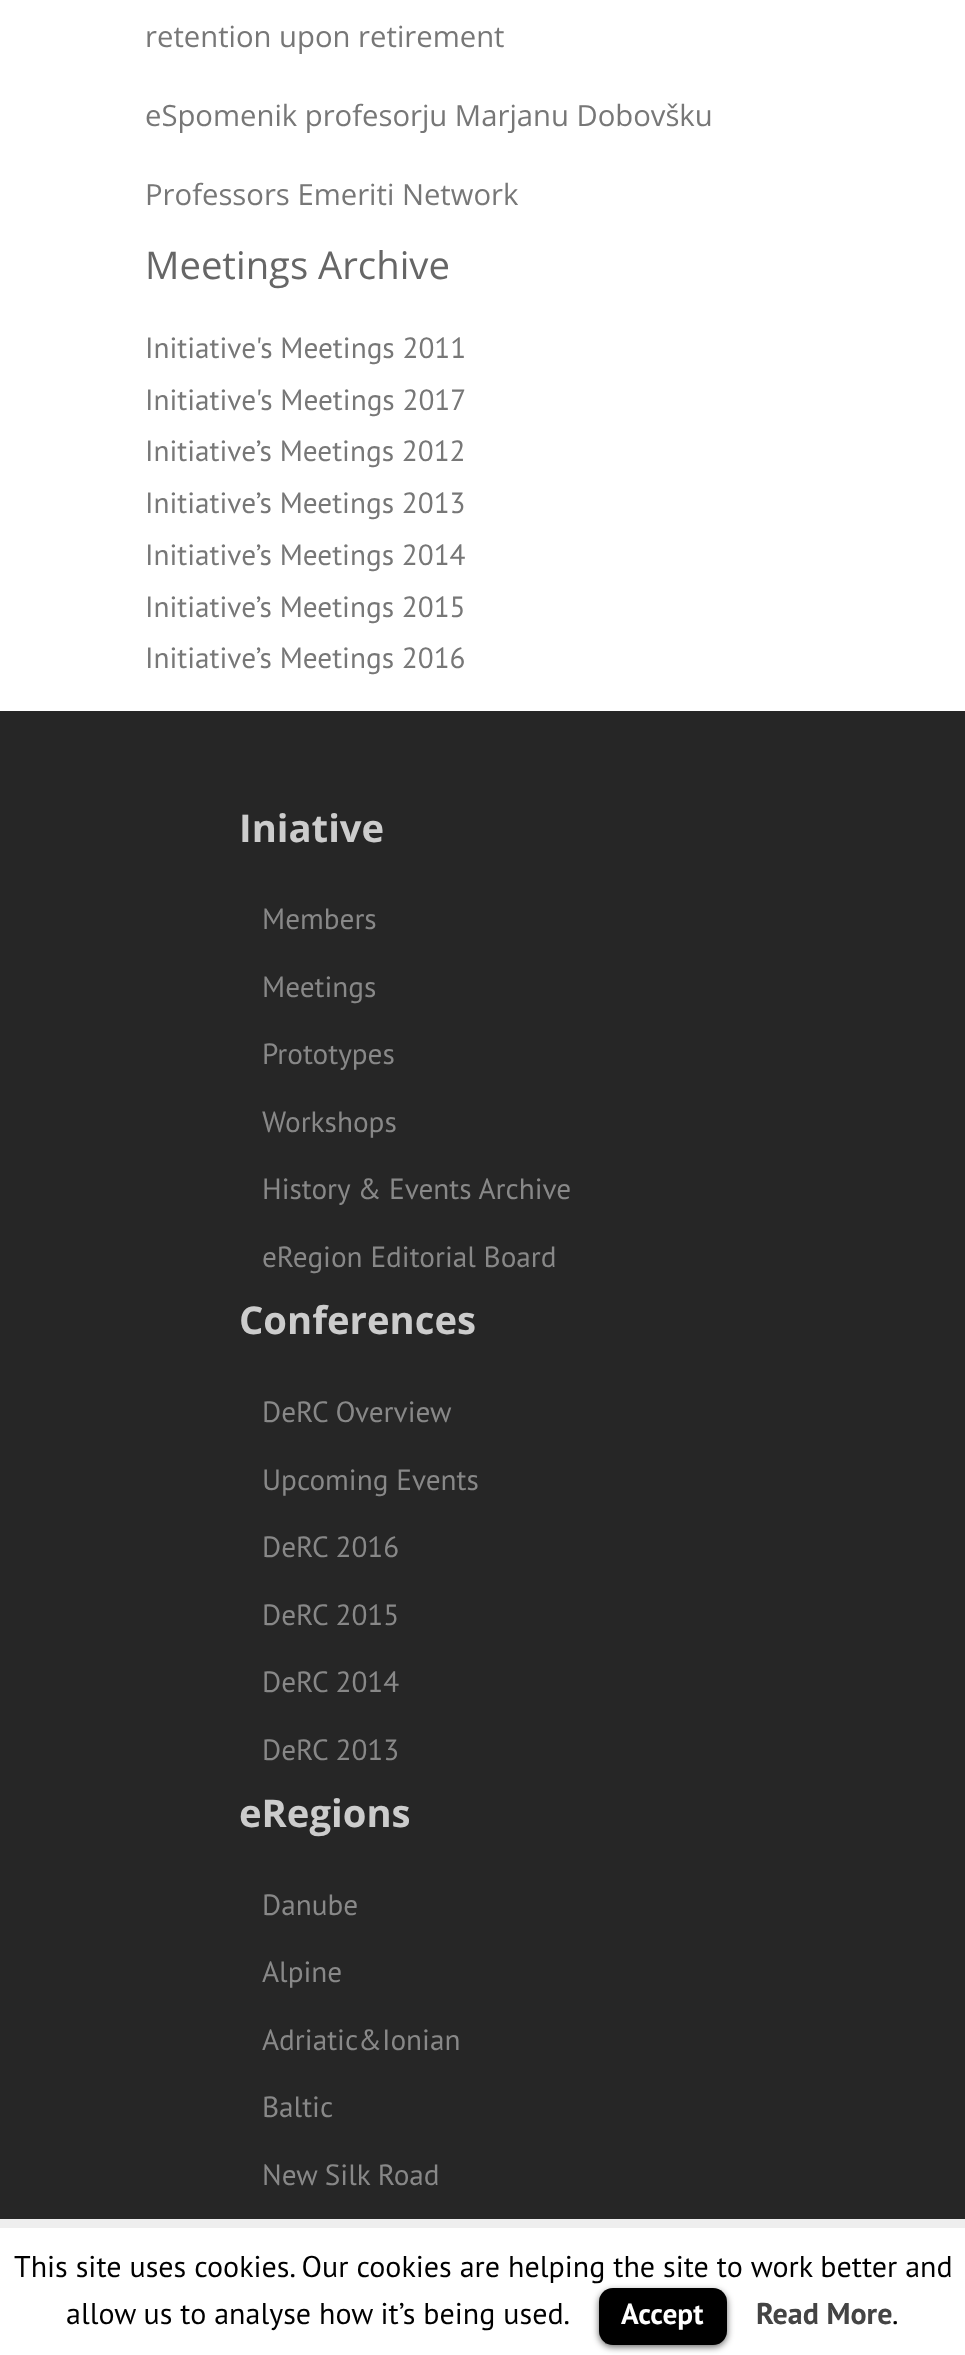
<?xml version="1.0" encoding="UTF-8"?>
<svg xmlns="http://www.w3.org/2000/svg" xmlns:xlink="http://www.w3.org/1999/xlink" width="965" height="2355">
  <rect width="100%" height="100%" fill="#ffffff" />
  <rect y="711" width="965" height="1508" fill="#262626" />
  <rect y="2219" width="965" height="9" fill="#eeeeee" />
  <rect x="599" y="2291" width="128" height="56" rx="14" fill="#000000" fill-opacity="0.6" filter="blur(3.5px)" />
  <rect x="599" y="2288" width="128" height="57" rx="14" fill="#000000" />
  <rect x="605" y="2342" width="115" height="2" fill="#000000" fill-opacity="0.25" />
  <text x="145" y="47" style="font-family: Open Sans; font-size: 29.25px; fill: #777777">retention upon retirement</text>
  <text x="145" y="126" style="font-family: Open Sans; font-size: 29.25px; fill: #777777">eSpomenik profesorju Marjanu Dobovšku</text>
  <text x="145" y="205" style="font-family: Open Sans; font-size: 29.25px; fill: #777777">Professors Emeriti Network</text>
  <text x="145" y="279" style="font-family: Open Sans; font-size: 38.25px; fill: #666666">Meetings Archive</text>
  <text x="145" y="358" style="font-family: PT Sans; font-size: 29.25px; fill: #777777">Initiative's Meetings 2011</text>
  <text x="145" y="410" style="font-family: PT Sans; font-size: 29.25px; fill: #777777">Initiative's Meetings 2017</text>
  <text x="145" y="461" style="font-family: PT Sans; font-size: 29.25px; fill: #777777">Initiative’s Meetings 2012</text>
  <text x="145" y="513" style="font-family: PT Sans; font-size: 29.25px; fill: #777777">Initiative’s Meetings 2013</text>
  <text x="145" y="565" style="font-family: PT Sans; font-size: 29.25px; fill: #777777">Initiative’s Meetings 2014</text>
  <text x="145" y="617" style="font-family: PT Sans; font-size: 29.25px; fill: #777777">Initiative’s Meetings 2015</text>
  <text x="145" y="668" style="font-family: PT Sans; font-size: 29.25px; fill: #777777">Initiative’s Meetings 2016</text>
  <text x="239" y="842" style="font-family: Open Sans; font-size: 38.25px; font-weight: bold; fill: #cccccc">Iniative</text>
  <text x="262" y="929" style="font-family: PT Sans; font-size: 29.25px; fill: #888888">Members</text>
  <text x="262" y="997" style="font-family: PT Sans; font-size: 29.25px; fill: #888888">Meetings</text>
  <text x="262" y="1064" style="font-family: PT Sans; font-size: 29.25px; fill: #888888">Prototypes</text>
  <text x="262" y="1132" style="font-family: PT Sans; font-size: 29.25px; fill: #888888">Workshops</text>
  <text x="262" y="1199" style="font-family: PT Sans; font-size: 29.25px; fill: #888888">History &amp; Events Archive</text>
  <text x="262" y="1267" style="font-family: PT Sans; font-size: 29.25px; fill: #888888">eRegion Editorial Board</text>
  <text x="239" y="1334" style="font-family: Open Sans; font-size: 38.25px; font-weight: bold; fill: #cccccc">Conferences</text>
  <text x="262" y="1422" style="font-family: PT Sans; font-size: 29.25px; fill: #888888">DeRC Overview</text>
  <text x="262" y="1490" style="font-family: PT Sans; font-size: 29.25px; fill: #888888">Upcoming Events</text>
  <text x="262" y="1557" style="font-family: PT Sans; font-size: 29.25px; fill: #888888">DeRC 2016</text>
  <text x="262" y="1625" style="font-family: PT Sans; font-size: 29.25px; fill: #888888">DeRC 2015</text>
  <text x="262" y="1692" style="font-family: PT Sans; font-size: 29.25px; fill: #888888">DeRC 2014</text>
  <text x="262" y="1760" style="font-family: PT Sans; font-size: 29.25px; fill: #888888">DeRC 2013</text>
  <text x="239" y="1827" style="font-family: Open Sans; font-size: 38.25px; font-weight: bold; fill: #cccccc">eRegions</text>
  <text x="262" y="1915" style="font-family: PT Sans; font-size: 29.25px; fill: #888888">Danube</text>
  <text x="262" y="1982" style="font-family: PT Sans; font-size: 29.25px; fill: #888888">Alpine</text>
  <text x="262" y="2050" style="font-family: PT Sans; font-size: 29.25px; fill: #888888">Adriatic&amp;Ionian</text>
  <text x="262" y="2117" style="font-family: PT Sans; font-size: 29.25px; fill: #888888">Baltic</text>
  <text x="262" y="2185" style="font-family: PT Sans; font-size: 29.25px; fill: #888888">New Silk Road</text>
  <text x="14" y="2277" style="font-family: PT Sans; font-size: 30px; fill: #000000">This site uses cookies. Our cookies are helping the site to work better and</text>
  <text x="66" y="2324" style="font-family: PT Sans; font-size: 30px; fill: #000000">allow us to analyse how it’s being used.</text>
  <text x="621" y="2324" style="font-family: PT Sans; font-size: 29.25px; font-weight: bold; fill: #ffffff">Accept</text>
  <text x="756" y="2324" style="font-family: PT Sans; font-size: 30px; font-weight: bold; fill: #444444">Read More</text>
  <text x="892" y="2324" style="font-family: PT Sans; font-size: 30px; fill: #000000">.</text>
</svg>
